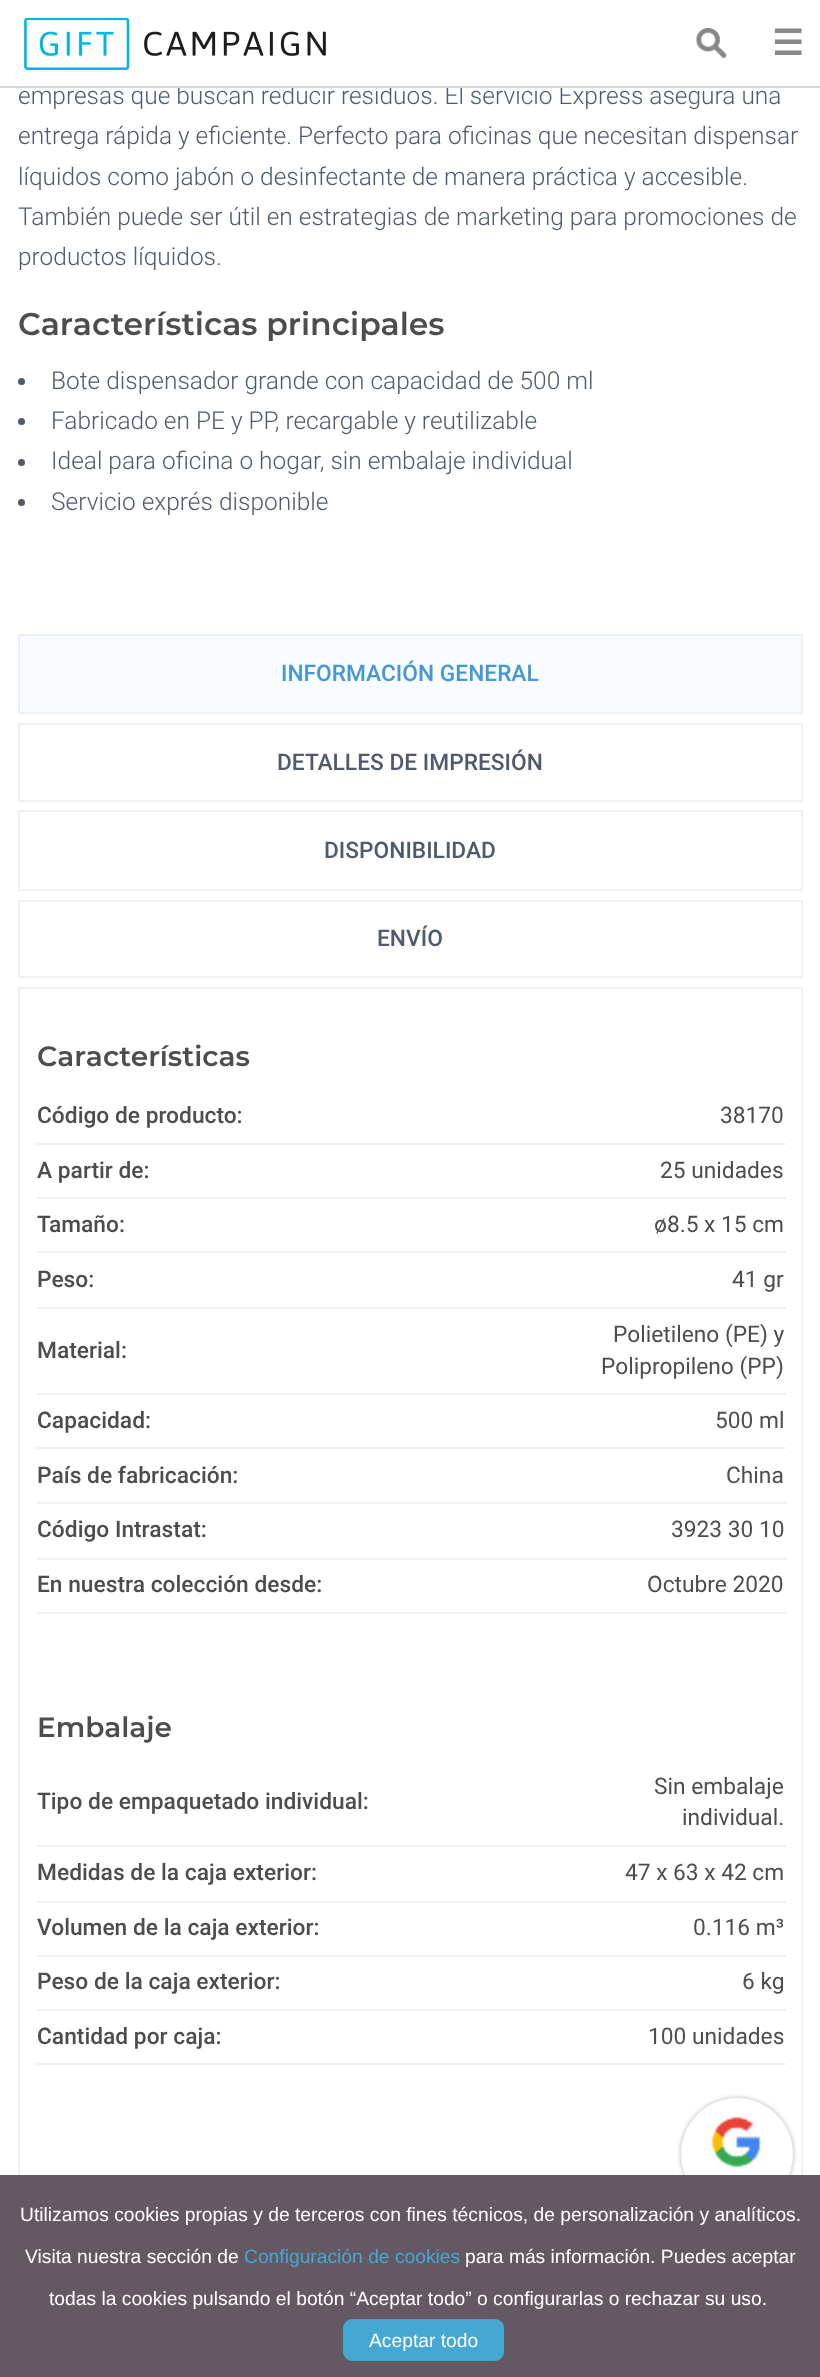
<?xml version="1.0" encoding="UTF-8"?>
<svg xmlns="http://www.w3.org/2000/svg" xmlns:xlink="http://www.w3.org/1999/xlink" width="820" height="2377">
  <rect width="100%" height="100%" fill="#ffffff" />
  <image x="24" y="18" width="302" height="52" xlink:href="image1.png" />
  <image x="696" y="28" width="31" height="30" xlink:href="image2.png" />
  <circle cx="21.5" cy="381.5" r="3.5" fill="#4f5a6d" />
  <circle cx="21.5" cy="421.5" r="3.5" fill="#4f5a6d" />
  <circle cx="21.5" cy="462.5" r="3.5" fill="#4f5a6d" />
  <circle cx="21.5" cy="502.5" r="3.5" fill="#4f5a6d" />
  <rect x="19" y="635" width="783" height="78" fill="#f8fbff" stroke="#f0f0f0" stroke-width="2" />
  <rect x="19" y="724" width="783" height="77" fill="none" stroke="#f0f0f0" stroke-width="2" />
  <rect x="19" y="811" width="783" height="79" fill="none" stroke="#f0f0f0" stroke-width="2" />
  <rect x="19" y="901" width="783" height="76" fill="none" stroke="#f0f0f0" stroke-width="2" />
  <rect x="19" y="988" width="783" height="1274" fill="none" stroke="#f0f0f0" stroke-width="2" />
  <rect x="37" y="1143" width="749" height="2" fill="#f0f0f0" />
  <rect x="37" y="1197" width="749" height="2" fill="#f0f0f0" />
  <rect x="37" y="1251" width="749" height="2" fill="#f0f0f0" />
  <rect x="37" y="1307" width="749" height="2" fill="#f0f0f0" />
  <rect x="37" y="1393" width="749" height="2" fill="#f0f0f0" />
  <rect x="37" y="1447" width="749" height="2" fill="#f0f0f0" />
  <rect x="37" y="1502" width="749" height="2" fill="#f0f0f0" />
  <rect x="37" y="1558" width="749" height="2" fill="#f0f0f0" />
  <rect x="37" y="1612" width="749" height="2" fill="#f0f0f0" />
  <rect x="37" y="1845" width="749" height="2" fill="#f0f0f0" />
  <rect x="37" y="1901" width="749" height="2" fill="#f0f0f0" />
  <rect x="37" y="1955" width="749" height="2" fill="#f0f0f0" />
  <rect x="37" y="2009" width="749" height="2" fill="#f0f0f0" />
  <rect x="37" y="2063" width="749" height="2" fill="#f0f0f0" />
  <rect x="681" y="2098" width="112" height="112" rx="56" fill="#000000" fill-opacity="0.3" filter="blur(2.5px)" />
  <circle cx="737" cy="2154" r="56" fill="#ffffff" />
  <image x="711" y="2116" width="50" height="52" xlink:href="image3.png" />
  <rect y="2175" width="820" height="202" fill="#645862" />
  <rect x="343" y="2319" width="161" height="42" rx="9" fill="#45a8d3" />
  <text x="772" y="55" style="font-family: DejaVu Sans; font-size: 35px; font-weight: bold; fill: #888888">☰</text>
  <text x="18" y="104" style="font-family: Roboto; font-size: 24.5px; font-weight: 300; fill: #4f5a6d">empresas que buscan reducir residuos. El servicio Express asegura una</text>
  <rect y="86" width="820" height="2" fill="#d6d6d6" />
  <rect x="177" y="85" width="285" height="1" fill="#ffffff" />
  <text x="18" y="144" style="font-family: Roboto; font-size: 24.5px; font-weight: 300; fill: #4f5a6d">entrega rápida y eficiente. Perfecto para oficinas que necesitan dispensar</text>
  <text x="18" y="185" style="font-family: Roboto; font-size: 24.5px; font-weight: 300; fill: #4f5a6d">líquidos como jabón o desinfectante de manera práctica y accesible.</text>
  <text x="18" y="225" style="font-family: Roboto; font-size: 24.5px; font-weight: 300; fill: #4f5a6d">También puede ser útil en estrategias de marketing para promociones de</text>
  <text x="18" y="265" style="font-family: Roboto; font-size: 24.5px; font-weight: 300; fill: #4f5a6d">productos líquidos.</text>
  <text x="18" y="335" style="font-family: Montserrat; font-size: 31.5px; font-weight: 600; fill: #4d4d4d">Características principales</text>
  <text x="51" y="389" style="font-family: Roboto; font-size: 24.5px; font-weight: 300; fill: #4f5a6d">Bote dispensador grande con capacidad de 500 ml</text>
  <text x="51" y="429" style="font-family: Roboto; font-size: 24.5px; font-weight: 300; fill: #4f5a6d">Fabricado en PE y PP, recargable y reutilizable</text>
  <text x="51" y="469" style="font-family: Roboto; font-size: 24.5px; font-weight: 300; fill: #4f5a6d">Ideal para oficina o hogar, sin embalaje individual</text>
  <text x="51" y="510" style="font-family: Roboto; font-size: 24.5px; font-weight: 300; fill: #4f5a6d">Servicio exprés disponible</text>
  <text x="281" y="681" style="font-family: Roboto; font-size: 22.75px; font-weight: 500; fill: #4598d3">INFORMACIÓN GENERAL</text>
  <text x="277" y="770" style="font-family: Roboto; font-size: 22.75px; font-weight: 500; fill: #4f5a6d">DETALLES DE IMPRESIÓN</text>
  <text x="324" y="858" style="font-family: Roboto; font-size: 22.75px; font-weight: 500; fill: #4f5a6d">DISPONIBILIDAD</text>
  <text x="377" y="946" style="font-family: Roboto; font-size: 22.75px; font-weight: 500; fill: #4f5a6d">ENVÍO</text>
  <text x="37" y="1066" style="font-family: Montserrat; font-size: 28px; font-weight: 600; fill: #4d4d4d">Características</text>
  <text x="37" y="1123" style="font-family: Roboto; font-size: 22.75px; font-weight: 500; fill: #4d4d4d">Código de producto:</text>
  <text x="720" y="1123" style="font-family: Roboto; font-size: 22.75px; fill: #4d4d4d">38170</text>
  <text x="37" y="1178" style="font-family: Roboto; font-size: 22.75px; font-weight: 500; fill: #4d4d4d">A partir de:</text>
  <text x="660" y="1178" style="font-family: Roboto; font-size: 22.75px; fill: #4d4d4d">25 unidades</text>
  <text x="37" y="1232" style="font-family: Roboto; font-size: 22.75px; font-weight: 500; fill: #4d4d4d">Tamaño:</text>
  <text x="654" y="1232" style="font-family: Roboto; font-size: 22.75px; fill: #4d4d4d">ø8.5 x 15 cm</text>
  <text x="37" y="1287" style="font-family: Roboto; font-size: 22.75px; font-weight: 500; fill: #4d4d4d">Peso:</text>
  <text x="732" y="1287" style="font-family: Roboto; font-size: 22.75px; fill: #4d4d4d">41 gr</text>
  <text x="37" y="1358" style="font-family: Roboto; font-size: 22.75px; font-weight: 500; fill: #4d4d4d">Material:</text>
  <text x="613" y="1342" style="font-family: Roboto; font-size: 22.75px; fill: #4d4d4d">Polietileno (PE) y</text>
  <text x="601" y="1374" style="font-family: Roboto; font-size: 22.75px; fill: #4d4d4d">Polipropileno (PP)</text>
  <text x="37" y="1428" style="font-family: Roboto; font-size: 22.75px; font-weight: 500; fill: #4d4d4d">Capacidad:</text>
  <text x="715" y="1428" style="font-family: Roboto; font-size: 22.75px; fill: #4d4d4d">500 ml</text>
  <text x="37" y="1483" style="font-family: Roboto; font-size: 22.75px; font-weight: 500; fill: #4d4d4d">País de fabricación:</text>
  <text x="726" y="1483" style="font-family: Roboto; font-size: 22.75px; fill: #4d4d4d">China</text>
  <text x="37" y="1537" style="font-family: Roboto; font-size: 22.75px; font-weight: 500; fill: #4d4d4d">Código Intrastat:</text>
  <text x="671" y="1537" style="font-family: Roboto; font-size: 22.75px; fill: #4d4d4d">3923 30 10</text>
  <text x="37" y="1592" style="font-family: Roboto; font-size: 22.75px; font-weight: 500; fill: #4d4d4d">En nuestra colección desde:</text>
  <text x="647" y="1592" style="font-family: Roboto; font-size: 22.75px; fill: #4d4d4d">Octubre 2020</text>
  <text x="37" y="1737" style="font-family: Montserrat; font-size: 28px; font-weight: 600; fill: #4d4d4d">Embalaje</text>
  <text x="37" y="1809" style="font-family: Roboto; font-size: 22.75px; font-weight: 500; fill: #4d4d4d">Tipo de empaquetado individual:</text>
  <text x="654" y="1794" style="font-family: Roboto; font-size: 22.75px; fill: #4d4d4d">Sin embalaje</text>
  <text x="682" y="1825" style="font-family: Roboto; font-size: 22.75px; fill: #4d4d4d">individual.</text>
  <text x="37" y="1880" style="font-family: Roboto; font-size: 22.75px; font-weight: 500; fill: #4d4d4d">Medidas de la caja exterior:</text>
  <text x="625" y="1880" style="font-family: Roboto; font-size: 22.75px; fill: #4d4d4d">47 x 63 x 42 cm</text>
  <text x="37" y="1935" style="font-family: Roboto; font-size: 22.75px; font-weight: 500; fill: #4d4d4d">Volumen de la caja exterior:</text>
  <text x="693" y="1935" style="font-family: Roboto; font-size: 22.75px; fill: #4d4d4d">0.116 m³</text>
  <text x="37" y="1989" style="font-family: Roboto; font-size: 22.75px; font-weight: 500; fill: #4d4d4d">Peso de la caja exterior:</text>
  <text x="742" y="1989" style="font-family: Roboto; font-size: 22.75px; fill: #4d4d4d">6 kg</text>
  <text x="37" y="2044" style="font-family: Roboto; font-size: 22.75px; font-weight: 500; fill: #4d4d4d">Cantidad por caja:</text>
  <text x="648" y="2044" style="font-family: Roboto; font-size: 22.75px; fill: #4d4d4d">100 unidades</text>
  <text x="20" y="2221" style="font-family: Liberation Sans; font-size: 19.25px; fill: #ffffff">Utilizamos cookies propias y de terceros con fines técnicos, de personalización y analíticos.</text>
  <text x="25" y="2263" style="font-family: Liberation Sans; font-size: 19.25px; fill: #ffffff">Visita nuestra sección de</text>
  <text x="244" y="2263" style="font-family: Liberation Sans; font-size: 19.25px; fill: #45a8d3">Configuración de cookies</text>
  <text x="465" y="2263" style="font-family: Liberation Sans; font-size: 19.25px; fill: #ffffff">para más información. Puedes aceptar</text>
  <text x="49" y="2305" style="font-family: Liberation Sans; font-size: 19.25px; fill: #ffffff">todas la cookies pulsando el botón “Aceptar todo” o configurarlas o rechazar su uso.</text>
  <text x="369" y="2347" style="font-family: Liberation Sans; font-size: 19.25px; fill: #ffffff">Aceptar todo</text>
</svg>
